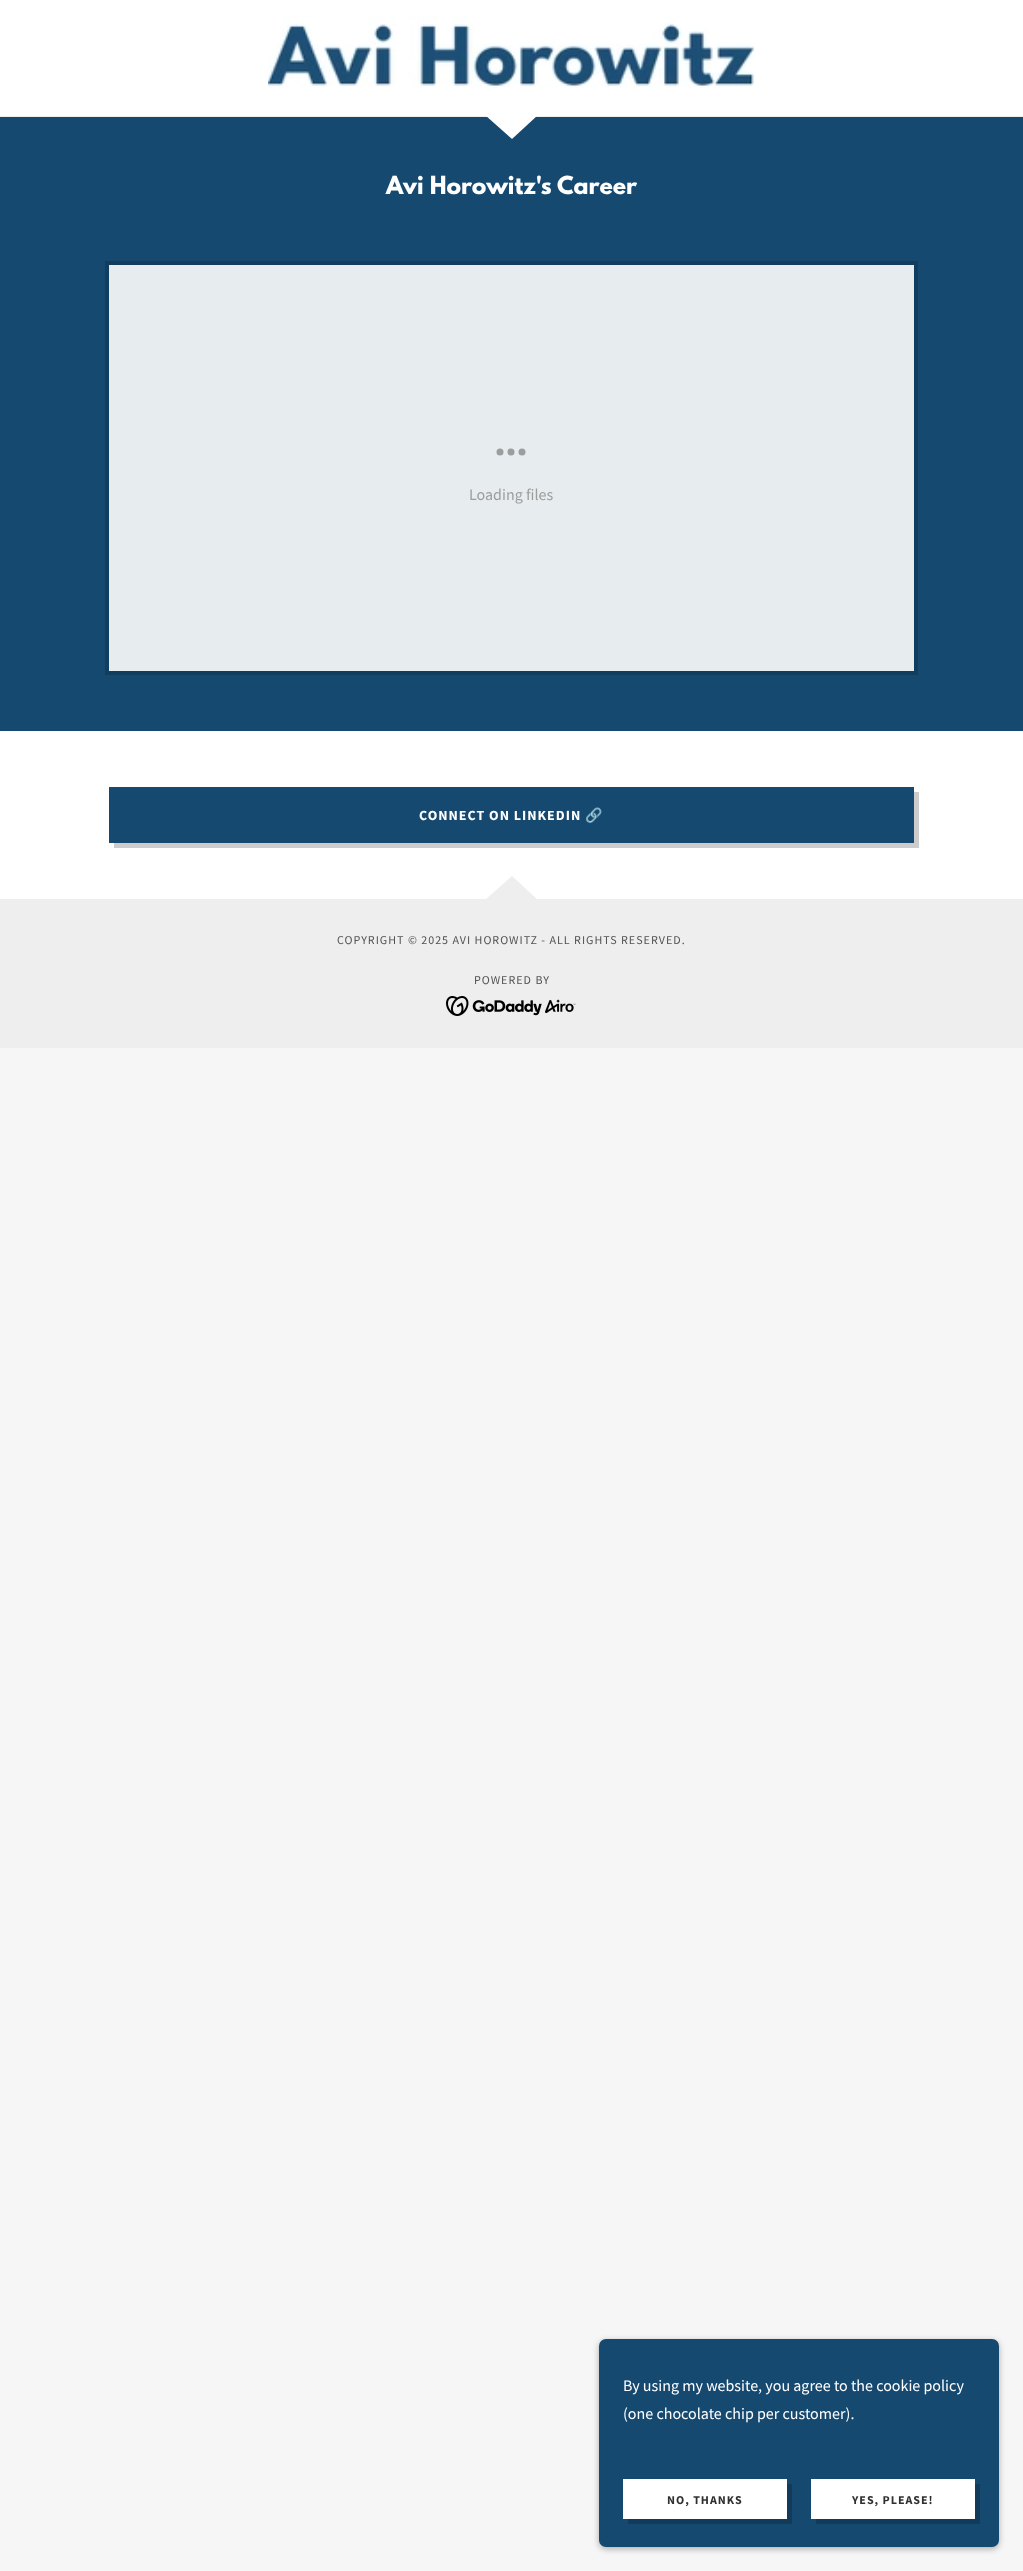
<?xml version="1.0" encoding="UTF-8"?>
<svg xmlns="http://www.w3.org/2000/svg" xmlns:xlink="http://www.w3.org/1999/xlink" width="1023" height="2571">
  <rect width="100%" height="100%" fill="#f6f6f6" />
  <rect width="1023" height="116" fill="#ffffff" />
  <rect y="116" width="1023" height="1" fill="#efefef" />
  <image x="268" y="16" width="487" height="72" xlink:href="image1.png" />
  <rect y="117" width="1023" height="614" fill="#164970" />
  <path d="M 512 139 l 26 -24 h -53 z" fill="#ffffff" fill-rule="evenodd" />
  <rect x="105" y="261" width="813" height="414" fill="#113d5f" />
  <rect x="109" y="265" width="805" height="406" fill="#e7ecef" />
  <circle cx="500" cy="452" r="3.5" fill="#9d9d9d" />
  <circle cx="511" cy="452" r="3.5" fill="#9d9d9d" />
  <circle cx="522" cy="452" r="3.5" fill="#9d9d9d" />
  <rect y="731" width="1023" height="168" fill="#ffffff" />
  <rect x="109" y="787" width="805" height="56" fill="#164970" />
  <path d="M 114 843 v 5 h 805 v -56 h -5 v 51 z" fill="#cccccc" />
  <rect y="899" width="1023" height="149" fill="#eeeeee" />
  <path d="M 512 876 l -27 24 h 53 z" fill="#eeeeee" fill-rule="evenodd" />
  <image x="446" y="996" width="130" height="20" xlink:href="image2.png" />
  <rect x="599" y="2341" width="400" height="208" rx="7" fill="#000000" fill-opacity="0.3" filter="blur(3px)" />
  <rect x="599" y="2339" width="400" height="208" rx="7" fill="#164970" />
  <rect x="623" y="2479" width="164" height="40" fill="#ffffff" />
  <path d="M 628 2519 v 5 h 164 v -40 h -5 v 35 z" fill="#123a5a" />
  <rect x="811" y="2479" width="164" height="40" fill="#ffffff" />
  <path d="M 816 2519 v 5 h 164 v -40 h -5 v 35 z" fill="#123a5a" />
  <text x="386" y="194" style="font-family: League Spartan; font-size: 22px; font-weight: bold; fill: #ffffff">Avi Horowitz's Career</text>
  <text x="469" y="500" style="font-family: Source Sans Pro; font-size: 16px; fill: #9d9d9d">Loading files</text>
  <text x="419" y="820" style="font-family: Source Sans Pro; font-size: 14px; font-weight: bold; letter-spacing: 1px; fill: #ffffff">CONNECT ON LINKEDIN</text>
  <text x="585" y="820" style="font-family: Noto Color Emoji; font-size: 14px; font-weight: bold; letter-spacing: 1px; fill: #ffffff">🔗</text>
  <text x="337" y="944" style="font-family: Source Sans Pro; font-size: 12px; letter-spacing: 1px; fill: #525252">COPYRIGHT © 2025 AVI HOROWITZ - ALL RIGHTS RESERVED.</text>
  <text x="474" y="984" style="font-family: Source Sans Pro; font-size: 12px; letter-spacing: 1px; fill: #525252">POWERED BY</text>
  <text x="623" y="2391" style="font-family: Source Sans Pro; font-size: 16px; fill: #ffffff">By using my website, you agree to the cookie policy</text>
  <text x="623" y="2419" style="font-family: Source Sans Pro; font-size: 16px; fill: #ffffff">(one chocolate chip per customer).</text>
  <text x="667" y="2504" style="font-family: Source Sans Pro; font-size: 12px; font-weight: bold; letter-spacing: 1px; fill: #303030">NO, THANKS</text>
  <text x="852" y="2504" style="font-family: Source Sans Pro; font-size: 12px; font-weight: bold; letter-spacing: 1px; fill: #303030">YES, PLEASE!</text>
</svg>
